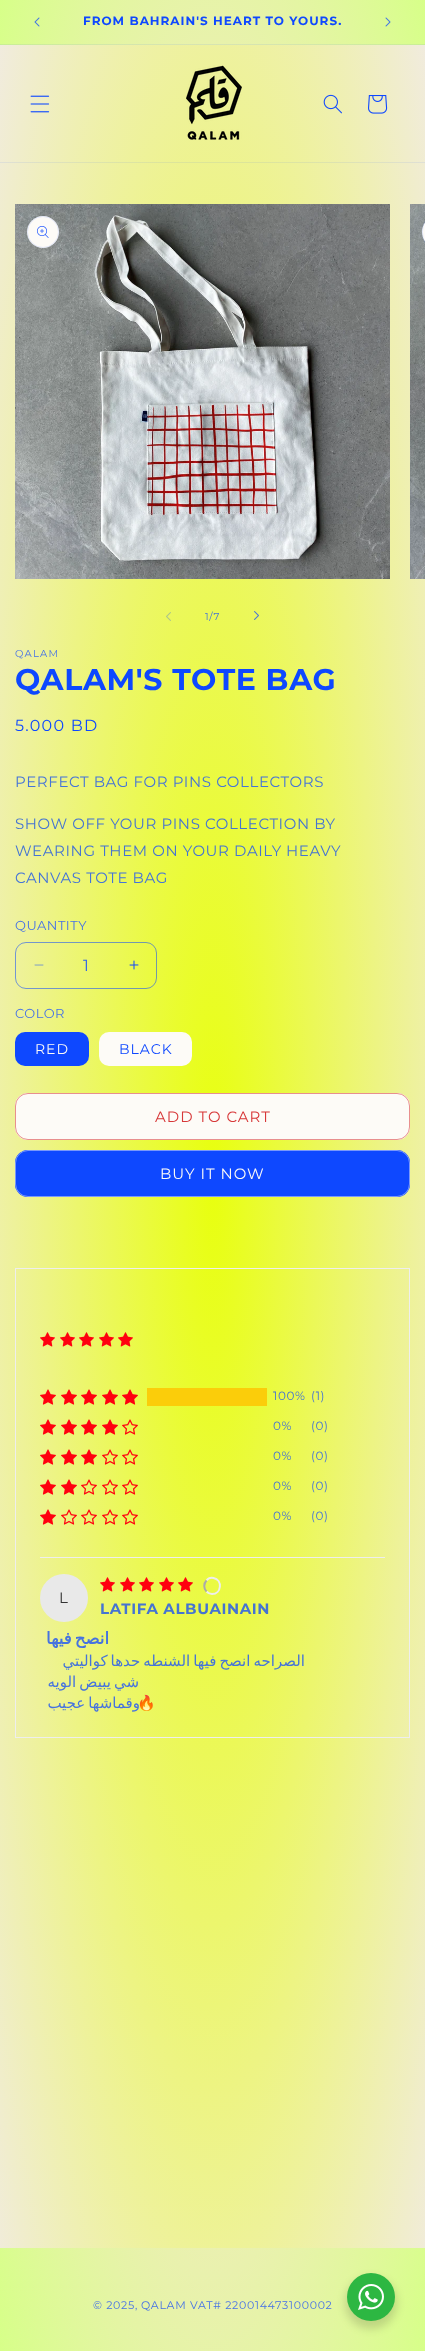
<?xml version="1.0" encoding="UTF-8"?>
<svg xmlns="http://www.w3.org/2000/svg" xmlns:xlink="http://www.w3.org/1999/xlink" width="425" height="2351">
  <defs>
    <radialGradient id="g1" gradientUnits="userSpaceOnUse" cx="0" cy="0" r="1" gradientTransform="matrix(301 0 0 1662 213 1176)"><stop offset="0" stop-color="#e8ff0e" /><stop offset="1" stop-color="#f1ebe2" /></radialGradient>
    <radialGradient id="g2" gradientUnits="userSpaceOnUse" cx="0" cy="0" r="1" gradientTransform="matrix(301 0 0 1662 213 1176)"><stop offset="0" stop-color="#ffe5e5" /><stop offset="0.25" stop-color="#ffe0da" /><stop offset="1" stop-color="#d7ff89" /></radialGradient>
    <radialGradient id="g3" gradientUnits="userSpaceOnUse" cx="0" cy="0" r="1" gradientTransform="matrix(301 0 0 1662 213 1176)"><stop offset="0" stop-color="#ecd8e7" /><stop offset="0.25" stop-color="#ecd4dd" /><stop offset="1" stop-color="#c7f092" /></radialGradient>
    <radialGradient id="g4" gradientUnits="userSpaceOnUse" cx="0" cy="0" r="1" gradientTransform="matrix(301 0 0 1662 213 1176)"><stop offset="0" stop-color="#d7f021" /><stop offset="1" stop-color="#dfdee4" /></radialGradient>
  </defs>
  <rect width="100%" height="100%" fill="#ffffff" />
  <rect y="163" width="425" height="2085" fill="url(#g1)" />
  <rect width="425" height="44" fill="url(#g2)" />
  <rect y="44" width="425" height="1" fill="url(#g3)" />
  <image x="34" y="17" width="6" height="10" xlink:href="image1.png" />
  <image x="385" y="17" width="6" height="10" xlink:href="image2.png" />
  <rect y="45" width="425" height="117" fill="url(#g1)" />
  <rect y="162" width="425" height="1" fill="url(#g4)" />
  <image x="30" y="95" width="20" height="18" xlink:href="image3.png" />
  <image x="186" y="65" width="56" height="75" xlink:href="image4.png" />
  <image x="323" y="94" width="19" height="20" xlink:href="image5.png" />
  <image x="368" y="95" width="20" height="19" xlink:href="image6.png" />
  <image x="15" y="204" width="375" height="375" xlink:href="image7.png" />
  <circle cx="43" cy="232" r="16" fill="#fdfbf7" />
  <circle cx="43" cy="232" r="15.5" fill="none" stroke="#0e48ff" stroke-opacity="0.1" />
  <image x="37" y="226" width="12" height="12" xlink:href="image8.png" />
  <image x="410" y="204" width="15" height="375" xlink:href="image9.png" />
  <path d="M 438 216 h -13 v 32 h 13 c -9 0 -16 -7 -16 -16 c 0 -9 7 -16 16 -16 z" fill="#fdfbf7" />
  <rect x="422.5" y="216.5" width="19" height="31" rx="15.5" fill="none" stroke="#0e48ff" stroke-opacity="0.1" />
  <image x="166" y="612" width="5" height="9" xlink:href="image10.png" />
  <image x="254" y="611" width="5" height="9" xlink:href="image11.png" />
  <image x="34" y="964" width="10" height="2" xlink:href="image12.png" />
  <image x="129" y="960" width="10" height="10" xlink:href="image13.png" />
  <rect x="15.5" y="942.5" width="141" height="46" rx="10.5" fill="none" stroke="#0e48ff" stroke-opacity="0.55" />
  <rect x="15" y="1032" width="74" height="34" rx="10" fill="#0e48ff" />
  <rect x="99" y="1032" width="93" height="34" rx="10" fill="#fdfbf7" />
  <rect x="15" y="1093" width="395" height="47" rx="13" fill="#fdfbf7" />
  <rect x="15.5" y="1093.5" width="394" height="46" rx="12.5" fill="none" stroke="#fdfbf7" />
  <rect x="15.5" y="1093.5" width="394" height="46" rx="12.5" fill="none" stroke="#d73738" stroke-opacity="0.55" />
  <rect x="15" y="1150" width="395" height="47" rx="13" fill="#0e48ff" />
  <rect x="15.5" y="1150.5" width="394" height="46" rx="12.5" fill="none" stroke="#0e48ff" />
  <rect x="15.5" y="1150.5" width="394" height="46" rx="12.5" fill="none" stroke="#fdfbf7" stroke-opacity="0.45" />
  <rect x="15.5" y="1268.5" width="394" height="469" fill="none" stroke="#eeeeee" />
  <image x="40" y="1332" width="15" height="15" xlink:href="image14.png" />
  <image x="60" y="1332" width="15" height="15" xlink:href="image15.png" />
  <image x="79" y="1332" width="15" height="15" xlink:href="image16.png" />
  <image x="99" y="1332" width="15" height="15" xlink:href="image17.png" />
  <image x="118" y="1332" width="15" height="15" xlink:href="image18.png" />
  <image x="40" y="1389" width="16" height="16" xlink:href="image19.png" />
  <image x="61" y="1389" width="16" height="16" xlink:href="image20.png" />
  <image x="81" y="1389" width="16" height="16" xlink:href="image21.png" />
  <image x="102" y="1389" width="16" height="16" xlink:href="image22.png" />
  <image x="122" y="1389" width="16" height="16" xlink:href="image23.png" />
  <rect x="147" y="1388" width="120" height="18" fill="#fbcd0a" />
  <image x="40" y="1419" width="16" height="16" xlink:href="image24.png" />
  <image x="61" y="1419" width="16" height="16" xlink:href="image25.png" />
  <image x="81" y="1419" width="16" height="16" xlink:href="image26.png" />
  <image x="102" y="1419" width="16" height="16" xlink:href="image27.png" />
  <image x="122" y="1419" width="16" height="16" xlink:href="image28.png" />
  <image x="40" y="1449" width="16" height="16" xlink:href="image29.png" />
  <image x="61" y="1449" width="16" height="16" xlink:href="image30.png" />
  <image x="81" y="1449" width="16" height="16" xlink:href="image31.png" />
  <image x="102" y="1449" width="16" height="16" xlink:href="image32.png" />
  <image x="122" y="1449" width="16" height="16" xlink:href="image33.png" />
  <image x="40" y="1479" width="16" height="16" xlink:href="image34.png" />
  <image x="61" y="1479" width="16" height="16" xlink:href="image35.png" />
  <image x="81" y="1479" width="16" height="16" xlink:href="image36.png" />
  <image x="102" y="1479" width="16" height="16" xlink:href="image37.png" />
  <image x="122" y="1479" width="16" height="16" xlink:href="image38.png" />
  <image x="40" y="1509" width="16" height="16" xlink:href="image39.png" />
  <image x="61" y="1509" width="16" height="16" xlink:href="image40.png" />
  <image x="81" y="1509" width="16" height="16" xlink:href="image41.png" />
  <image x="102" y="1509" width="16" height="16" xlink:href="image42.png" />
  <image x="122" y="1509" width="16" height="16" xlink:href="image43.png" />
  <rect x="40" y="1557" width="345" height="1" fill="#eeeeee" />
  <image x="100" y="1577" width="15" height="15" xlink:href="image44.png" />
  <image x="120" y="1577" width="15" height="15" xlink:href="image45.png" />
  <image x="139" y="1577" width="15" height="15" xlink:href="image46.png" />
  <image x="159" y="1577" width="15" height="15" xlink:href="image47.png" />
  <image x="178" y="1577" width="15" height="15" xlink:href="image48.png" />
  <path d="M 206.5 1580.5 c 1.5 -2 4.5 -3 7 -2.5 c 9.5 2 8 16 -1.5 16 c -2 0 -4 -1 -5.5 -2.5" fill="none" stroke="#eeeeee" stroke-width="2" />
  <path d="M 206.5 1591.5 c -3 -3 -3 -8 0 -11" fill="none" stroke="#aaaaaa" stroke-width="2" />
  <circle cx="64" cy="1598" r="24" fill="#e9e9e9" />
  <rect y="2248" width="425" height="103" fill="url(#g2)" />
  <rect x="345" y="2277" width="52" height="52" rx="26" fill="#000000" fill-opacity="0.14" filter="blur(4px)" />
  <circle cx="371" cy="2297" r="24" fill="#2db742" />
  <image x="358" y="2284" width="26" height="26" xlink:href="image49.png" />
  <text x="83" y="25" style="font-family: Montserrat; font-size: 12px; font-weight: bold; letter-spacing: 1px; fill: #0e48ff">FROM BAHRAIN'S HEART TO YOURS.</text>
  <text x="205" y="620" style="font-family: Montserrat; font-size: 10px; letter-spacing: 0.7px; fill: #4574d2">1/7</text>
  <text x="15" y="657" style="font-family: Montserrat; font-size: 10px; letter-spacing: 1.25px; fill: #4672e6">QALAM</text>
  <text x="15" y="690" style="font-family: Montserrat; font-size: 30px; font-weight: bold; letter-spacing: 0.6px; fill: #0e48ff">QALAM'S TOTE BAG</text>
  <text x="15" y="731" style="font-family: Montserrat; font-size: 16px; letter-spacing: 1.25px; fill: #0e48ff">5.000 BD</text>
  <text x="15" y="787" style="font-family: Montserrat; font-size: 15px; letter-spacing: 0.6px; fill: #4574d8">PERFECT BAG FOR PINS COLLECTORS</text>
  <text x="15" y="829" style="font-family: Montserrat; font-size: 15px; letter-spacing: 0.6px; fill: #4574d2">SHOW OFF YOUR PINS COLLECTION BY</text>
  <text x="15" y="856" style="font-family: Montserrat; font-size: 15px; letter-spacing: 0.6px; fill: #4574d2">WEARING THEM ON YOUR DAILY</text>
  <text x="286" y="856" style="font-family: Montserrat; font-size: 15px; letter-spacing: 0.6px; fill: #4574d2">HEAVY</text>
  <text x="15" y="883" style="font-family: Montserrat; font-size: 15px; letter-spacing: 0.6px; fill: #4574d8">CANVAS TOTE BAG</text>
  <text x="15" y="930" style="font-family: Montserrat; font-size: 13px; letter-spacing: 0.5px; fill: #4672e6">QUANTITY</text>
  <text x="83" y="971" style="font-family: Montserrat; font-size: 16px; fill: #2f62e9">1</text>
  <text x="15" y="1018" style="font-family: Montserrat; font-size: 13px; letter-spacing: 0.5px; fill: #4672e6">COLOR</text>
  <text x="35" y="1054" style="font-family: Montserrat; font-size: 14px; letter-spacing: 1px; fill: #fdfbf7">RED</text>
  <text x="119" y="1054" style="font-family: Montserrat; font-size: 14px; letter-spacing: 1px; fill: #0e48ff">BLACK</text>
  <text x="155" y="1122" style="font-family: Montserrat; font-size: 15px; letter-spacing: 1px; fill: #d73738">ADD TO CART</text>
  <text x="160" y="1179" style="font-family: Montserrat; font-size: 15px; letter-spacing: 1px; fill: #fdfbf7">BUY IT NOW</text>
  <text x="273" y="1400" style="font-family: Montserrat; font-size: 12px; letter-spacing: 0.6px; fill: #4574d2">100%</text>
  <text x="311" y="1400" style="font-family: Montserrat; font-size: 12px; letter-spacing: 0.6px; fill: #4574d2">(1)</text>
  <text x="273" y="1430" style="font-family: Montserrat; font-size: 12px; letter-spacing: 0.6px; fill: #4574d2">0%</text>
  <text x="311" y="1430" style="font-family: Montserrat; font-size: 12px; letter-spacing: 0.6px; fill: #4574d2">(0)</text>
  <text x="273" y="1460" style="font-family: Montserrat; font-size: 12px; letter-spacing: 0.6px; fill: #4574d2">0%</text>
  <text x="311" y="1460" style="font-family: Montserrat; font-size: 12px; letter-spacing: 0.6px; fill: #4574d8">(0)</text>
  <text x="273" y="1490" style="font-family: Montserrat; font-size: 12px; letter-spacing: 0.6px; fill: #4574d2">0%</text>
  <text x="311" y="1490" style="font-family: Montserrat; font-size: 12px; letter-spacing: 0.6px; fill: #4574d8">(0)</text>
  <text x="273" y="1520" style="font-family: Montserrat; font-size: 12px; letter-spacing: 0.6px; fill: #4574d2">0%</text>
  <text x="311" y="1520" style="font-family: Montserrat; font-size: 12px; letter-spacing: 0.6px; fill: #4574d8">(0)</text>
  <text x="59" y="1603" style="font-family: Montserrat; font-size: 15px; letter-spacing: 0.6px; fill: #333333">L</text>
  <text x="100" y="1614" style="font-family: Montserrat; font-size: 15px; font-weight: bold; letter-spacing: 0.6px; fill: #4574d2">LATIFA ALBUAINAIN</text>
  <text x="109" y="1644" word-spacing="-2" style="font-family: DejaVu Sans; font-size: 16.5px; font-weight: bold; letter-spacing: 0.6px; direction: rtl; fill: #4673df">انصح فيها</text>
  <text x="305" y="1666" word-spacing="-1.75" style="font-family: DejaVu Sans; font-size: 15px; letter-spacing: 0.6px; direction: rtl; fill: #4574d8">الصراحه انصح فيها الشنطه حدها كواليتي</text>
  <text x="139" y="1687" word-spacing="-1.75" style="font-family: DejaVu Sans; font-size: 15px; letter-spacing: 0.6px; direction: rtl; fill: #4673df">شي يبيض الويه</text>
  <text x="140" y="1708" word-spacing="-1.75" style="font-family: DejaVu Sans; font-size: 15px; letter-spacing: 0.6px; direction: rtl; fill: #4673df">وقماشها عجيب</text>
  <text x="137" y="1708" style="font-family: Noto Color Emoji; font-size: 15px; letter-spacing: 0.6px; fill: #4574d8">🔥</text>
  <text x="93" y="2309" style="font-family: Montserrat; font-size: 11px; letter-spacing: 0.7px; fill: #4672e6">© 2025,</text>
  <text x="141" y="2309" style="font-family: Montserrat; font-size: 11px; letter-spacing: 0.7px; fill: #4672e6">QALAM</text>
  <text x="190" y="2309" style="font-family: Montserrat; font-size: 11px; letter-spacing: 0.7px; fill: #4672e6">VAT# 220014473100002</text>
</svg>
